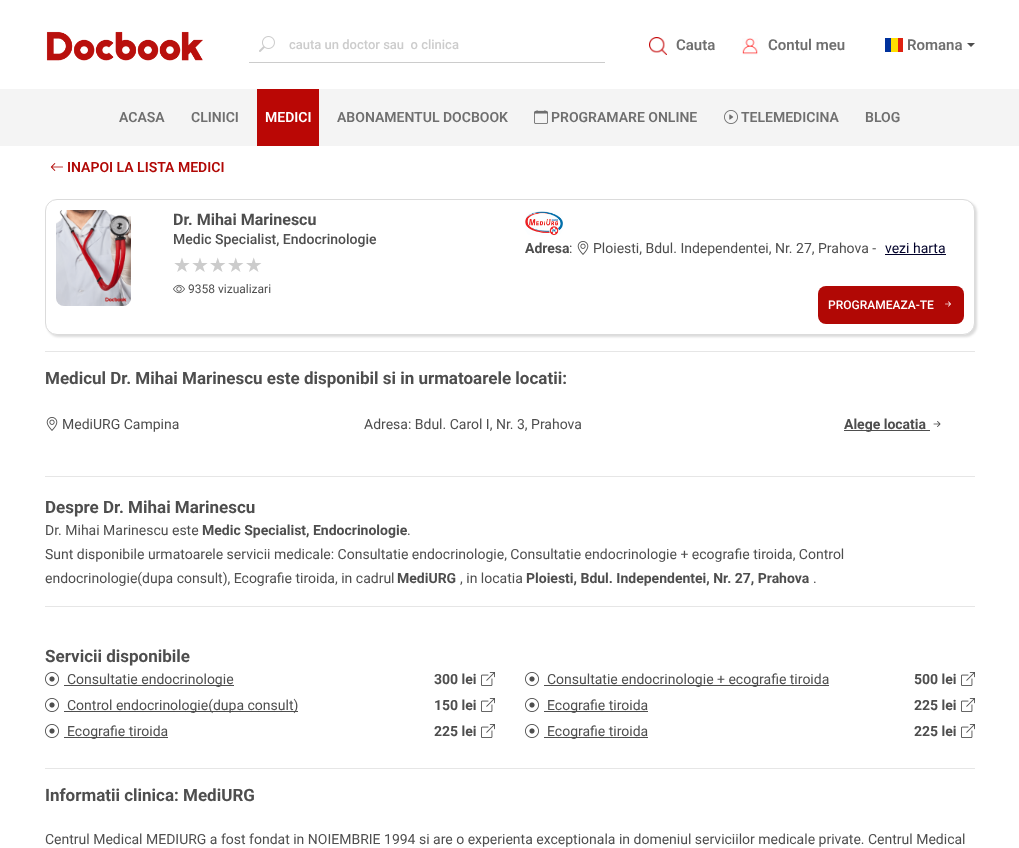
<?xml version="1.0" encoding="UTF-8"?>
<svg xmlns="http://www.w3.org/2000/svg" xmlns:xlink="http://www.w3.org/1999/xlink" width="1019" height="848">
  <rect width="100%" height="100%" fill="#ffffff" />
  <rect y="89" width="1019" height="57" fill="#f4f4f4" />
  <image x="46" y="31" width="157" height="30" xlink:href="image1.png" />
  <image x="259" y="36" width="16" height="16" xlink:href="image2.png" />
  <rect x="249" y="62" width="356" height="1" fill="#cccccc" />
  <image x="649" y="37" width="18" height="18" xlink:href="image3.png" />
  <image x="742" y="38" width="16" height="17" xlink:href="image4.png" />
  <rect x="885" y="38" width="6" height="14" fill="#00319c" />
  <rect x="891" y="38" width="7" height="14" fill="#ffde00" />
  <rect x="898" y="38" width="5" height="14" fill="#de2110" />
  <path d="M 967 43 h 8 l -4 4 z" fill="#4e4e4e" />
  <rect x="257" y="89" width="62" height="57" fill="#ba0705" />
  <image x="534" y="110" width="14" height="14" xlink:href="image5.png" />
  <image x="724" y="110" width="14" height="14" xlink:href="image6.png" />
  <image x="50" y="163" width="13" height="8" xlink:href="image7.png" />
  <rect x="47" y="201" width="930" height="136" rx="12" fill="#dbdbdb" filter="blur(1px)" />
  <rect x="45.5" y="199.5" width="929" height="135" rx="11.5" fill="#ffffff" stroke="#dbdbdb" />
  <image x="56" y="210" width="75" height="96" xlink:href="image8.png" />
  <image x="173" y="284" width="12" height="10" xlink:href="image9.png" />
  <image x="525" y="211" width="38" height="25" xlink:href="image10.png" />
  <image x="577" y="241" width="12" height="14" xlink:href="image11.png" />
  <rect x="885" y="254" width="61" height="1" fill="#000029" />
  <rect x="818" y="286" width="146" height="38" rx="8" fill="#b10805" />
  <image x="945" y="301" width="6" height="6" xlink:href="image12.png" />
  <rect x="45" y="351" width="930" height="1" fill="#e6e6e6" />
  <image x="46" y="417" width="12" height="14" xlink:href="image11.png" />
  <rect x="844" y="430" width="86" height="1" fill="#4e4e4e" />
  <image x="933" y="421" width="8" height="6" xlink:href="image13.png" />
  <rect x="45" y="476" width="930" height="1" fill="#e6e6e6" />
  <rect x="45" y="606" width="930" height="1" fill="#e6e6e6" />
  <image x="45" y="672" width="14" height="14" xlink:href="image14.png" />
  <rect x="64" y="685" width="170" height="1" fill="#4e4e4e" />
  <image x="481" y="672" width="14" height="14" xlink:href="image15.png" />
  <image x="525" y="672" width="14" height="14" xlink:href="image14.png" />
  <rect x="544" y="685" width="285" height="1" fill="#4e4e4e" />
  <image x="961" y="672" width="14" height="14" xlink:href="image15.png" />
  <image x="45" y="698" width="14" height="14" xlink:href="image14.png" />
  <rect x="64" y="711" width="234" height="1" fill="#4e4e4e" />
  <image x="481" y="698" width="14" height="14" xlink:href="image15.png" />
  <image x="525" y="698" width="14" height="14" xlink:href="image14.png" />
  <rect x="544" y="711" width="104" height="1" fill="#4e4e4e" />
  <image x="961" y="698" width="14" height="14" xlink:href="image15.png" />
  <image x="45" y="724" width="14" height="14" xlink:href="image14.png" />
  <rect x="64" y="737" width="104" height="1" fill="#4e4e4e" />
  <image x="481" y="724" width="14" height="14" xlink:href="image15.png" />
  <image x="525" y="724" width="14" height="14" xlink:href="image14.png" />
  <rect x="544" y="737" width="104" height="1" fill="#4e4e4e" />
  <image x="961" y="724" width="14" height="14" xlink:href="image15.png" />
  <rect x="45" y="768" width="930" height="1" fill="#e6e6e6" />
  <text x="289" y="49" style="font-family: Roboto; font-size: 13px; font-weight: 500; fill: #cccccc" xml:space="preserve">cauta un doctor sau  o clinica</text>
  <text x="676" y="50" style="font-family: Roboto; font-size: 15px; font-weight: 600; fill: #6f6f6f">Cauta</text>
  <text x="768" y="50" style="font-family: Roboto; font-size: 15px; font-weight: 600; fill: #6f6f6f">Contul meu</text>
  <text x="907" y="50" style="font-family: Roboto; font-size: 15px; font-weight: 600; fill: #6f6f6f">Romana</text>
  <text x="119" y="122" style="font-family: Roboto; font-size: 14px; font-weight: 600; fill: #6f6f6f">ACASA</text>
  <text x="191" y="122" style="font-family: Roboto; font-size: 14px; font-weight: 600; fill: #6f6f6f">CLINICI</text>
  <text x="265" y="122" style="font-family: Roboto; font-size: 14px; font-weight: 600; fill: #ffffff">MEDICI</text>
  <text x="337" y="122" style="font-family: Roboto; font-size: 14px; font-weight: 600; fill: #6f6f6f">ABONAMENTUL DOCBOOK</text>
  <text x="551" y="122" style="font-family: Roboto; font-size: 14px; font-weight: 600; fill: #6f6f6f">PROGRAMARE ONLINE</text>
  <text x="741" y="122" style="font-family: Roboto; font-size: 14px; font-weight: 600; fill: #6f6f6f">TELEMEDICINA</text>
  <text x="865" y="122" style="font-family: Roboto; font-size: 14px; font-weight: 600; fill: #6f6f6f">BLOG</text>
  <text x="67" y="172" style="font-family: Roboto; font-size: 14px; font-weight: 600; fill: #b10805">INAPOI LA LISTA MEDICI</text>
  <text x="173" y="225" style="font-family: Roboto; font-size: 16px; font-weight: bold; fill: #4e4e4e">Dr. Mihai Marinescu</text>
  <text x="173" y="244" style="font-family: Roboto; font-size: 14px; font-weight: 500; fill: #4e4e4e">Medic Specialist, Endocrinologie</text>
  <text x="173" y="272" style="font-family: DejaVu Sans; font-size: 20px; fill: #cccccc">★★★★★</text>
  <text x="188" y="293" style="font-family: Roboto; font-size: 12px; fill: #4e4e4e">9358 vizualizari</text>
  <text x="525" y="253" style="font-family: Roboto; font-size: 14px; font-weight: bold; fill: #4e4e4e">Adresa</text>
  <text x="569" y="253" style="font-family: Roboto; font-size: 14px; fill: #4e4e4e">:</text>
  <text x="593" y="253" style="font-family: Roboto; font-size: 14px; fill: #4e4e4e">Ploiesti, Bdul. Independentei, Nr. 27, Prahova -</text>
  <text x="885" y="253" style="font-family: Roboto; font-size: 14px; fill: #000029">vezi harta</text>
  <text x="828" y="309" style="font-family: Roboto; font-size: 12px; font-weight: 500; fill: #ffffff">PROGRAMEAZA-TE</text>
  <text x="45" y="384" style="font-family: Roboto; font-size: 17px; font-weight: bold; fill: #4e4e4e">Medicul Dr. Mihai Marinescu este disponibil si in urmatoarele locatii:</text>
  <text x="62" y="429" style="font-family: Roboto; font-size: 14px; fill: #4e4e4e">MediURG Campina</text>
  <text x="364" y="429" style="font-family: Roboto; font-size: 14px; fill: #4e4e4e">Adresa: Bdul. Carol I, Nr. 3, Prahova</text>
  <text x="844" y="429" style="font-family: Roboto; font-size: 14px; font-weight: bold; fill: #4e4e4e">Alege locatia</text>
  <text x="45" y="513" style="font-family: Roboto; font-size: 17px; font-weight: bold; fill: #4e4e4e">Despre Dr. Mihai Marinescu</text>
  <text x="45" y="535" style="font-family: Roboto; font-size: 14px; fill: #4e4e4e">Dr. Mihai Marinescu este</text>
  <text x="202" y="535" style="font-family: Roboto; font-size: 14px; font-weight: bold; fill: #4e4e4e">Medic Specialist, Endocrinologie</text>
  <text x="407" y="535" style="font-family: Roboto; font-size: 14px; fill: #4e4e4e">.</text>
  <text x="45" y="559" style="font-family: Roboto; font-size: 14px; fill: #4e4e4e">Sunt disponibile urmatoarele servicii medicale: Consultatie endocrinologie, Consultatie endocrinologie + ecografie tiroida, Control</text>
  <text x="45" y="583" style="font-family: Roboto; font-size: 14px; fill: #4e4e4e">endocrinologie(dupa consult), Ecografie tiroida, in cadrul</text>
  <text x="397" y="583" style="font-family: Roboto; font-size: 14px; font-weight: bold; fill: #4e4e4e">MediURG</text>
  <text x="460" y="583" style="font-family: Roboto; font-size: 14px; fill: #4e4e4e">, in locatia</text>
  <text x="526" y="583" style="font-family: Roboto; font-size: 14px; font-weight: bold; fill: #4e4e4e">Ploiesti, Bdul. Independentei, Nr. 27, Prahova</text>
  <text x="813" y="583" style="font-family: Roboto; font-size: 14px; fill: #4e4e4e">.</text>
  <text x="45" y="662" style="font-family: Roboto; font-size: 17px; font-weight: bold; fill: #4e4e4e">Servicii disponibile</text>
  <text x="67" y="684" style="font-family: Roboto; font-size: 14px; fill: #4e4e4e">Consultatie endocrinologie</text>
  <text x="434" y="684" style="font-family: Roboto; font-size: 14px; font-weight: bold; fill: #4e4e4e">300 lei</text>
  <text x="547" y="684" style="font-family: Roboto; font-size: 14px; fill: #4e4e4e">Consultatie endocrinologie + ecografie tiroida</text>
  <text x="914" y="684" style="font-family: Roboto; font-size: 14px; font-weight: bold; fill: #4e4e4e">500 lei</text>
  <text x="67" y="710" style="font-family: Roboto; font-size: 14px; fill: #4e4e4e">Control endocrinologie(dupa consult)</text>
  <text x="434" y="710" style="font-family: Roboto; font-size: 14px; font-weight: bold; fill: #4e4e4e">150 lei</text>
  <text x="547" y="710" style="font-family: Roboto; font-size: 14px; fill: #4e4e4e">Ecografie tiroida</text>
  <text x="914" y="710" style="font-family: Roboto; font-size: 14px; font-weight: bold; fill: #4e4e4e">225 lei</text>
  <text x="67" y="736" style="font-family: Roboto; font-size: 14px; fill: #4e4e4e">Ecografie tiroida</text>
  <text x="434" y="736" style="font-family: Roboto; font-size: 14px; font-weight: bold; fill: #4e4e4e">225 lei</text>
  <text x="547" y="736" style="font-family: Roboto; font-size: 14px; fill: #4e4e4e">Ecografie tiroida</text>
  <text x="914" y="736" style="font-family: Roboto; font-size: 14px; font-weight: bold; fill: #4e4e4e">225 lei</text>
  <text x="45" y="801" style="font-family: Roboto; font-size: 17px; font-weight: bold; fill: #4e4e4e">Informatii clinica: MediURG</text>
  <text x="45" y="844" style="font-family: Roboto; font-size: 14px; fill: #4e4e4e">Centrul Medical MEDIURG a fost fondat in NOIEMBRIE 1994 si are o experienta exceptionala in domeniul serviciilor medicale private. Centrul Medical</text>
</svg>
